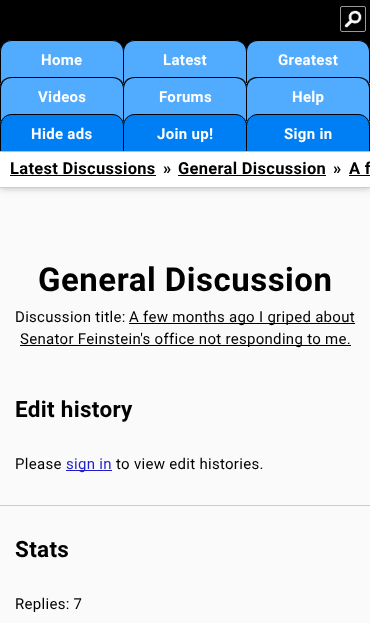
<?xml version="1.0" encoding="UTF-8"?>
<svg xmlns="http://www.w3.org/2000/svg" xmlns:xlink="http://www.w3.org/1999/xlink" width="370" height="623">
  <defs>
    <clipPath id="clip1"><rect width="370" height="151" /></clipPath>
  </defs>
  <rect width="100%" height="100%" fill="#fafafa" />
  <rect width="370" height="126" fill="#000000" />
  <image x="344" y="10" width="18" height="18" xlink:href="image1.png" />
  <rect x="340.5" y="6.5" width="25" height="25" rx="1.5" fill="none" stroke="#999999" />
  <path d="M 12 40 h 100 c 6.5 0 12 5.5 12 12 v 32 h -124 v -32 c 0 -6.5 5.5 -12 12 -12 z" fill="#51abff" />
  <path d="M 12 40 c -4 0 -6 1 -9 3 l 1 1 c 2 -2 5 -3 8 -3 h 100 c 3 0 6 1 8 3 l 1 -1 c -3 -2 -5 -3 -9 -3 z" fill="#000000" />
  <path d="M 124 84 v -32 c 0 -4 -1 -6 -3 -9 l -1 1 c 2 2 3 5 3 8 v 31 z" fill="#000000" />
  <path d="M 0 84 l 1 -1 v -31 c 0 -3 1 -6 3 -8 l -1 -1 c -2 3 -3 5 -3 9 z" fill="#000000" />
  <path d="M 258 40 h 100 c 6.5 0 12 5.5 12 12 v 32 h -124 v -32 c 0 -6.5 5.5 -12 12 -12 z" fill="#51abff" />
  <path d="M 258 40 c -4 0 -6 1 -9 3 l 1 1 c 2 -2 5 -3 8 -3 h 100 c 3 0 6 1 8 3 l 1 -1 c -3 -2 -5 -3 -9 -3 z" fill="#000000" />
  <path d="M 370 84 v -32 c 0 -4 -1 -6 -3 -9 l -1 1 c 2 2 3 5 3 8 v 31 z" fill="#000000" />
  <path d="M 370 84 l -1 -1 h -122 l -1 1 z" fill="#bbbbbb" />
  <path d="M 246 84 l 1 -1 v -31 c 0 -3 1 -6 3 -8 l -1 -1 c -2 3 -3 5 -3 9 z" fill="#000000" />
  <path d="M 12 77 h 100 c 6.5 0 12 5.5 12 12 v 33 h -124 v -33 c 0 -6.5 5.5 -12 12 -12 z" fill="#51abff" />
  <path d="M 12 77 c -4 0 -6 1 -9 3 l 1 1 c 2 -2 5 -3 8 -3 h 100 c 3 0 6 1 8 3 l 1 -1 c -3 -2 -5 -3 -9 -3 z" fill="#000000" />
  <path d="M 124 122 v -33 c 0 -3 -1 -7 -3 -9 l -1 1 c 2 2 3 5 3 8 v 32 z" fill="#000000" />
  <path d="M 258 77 h 100 c 6.5 0 12 5.5 12 12 v 33 h -124 v -33 c 0 -6.5 5.5 -12 12 -12 z" fill="#51abff" />
  <path d="M 258 77 c -4 0 -6 1 -9 3 l 1 1 c 2 -2 5 -3 8 -3 h 100 c 3 0 6 1 8 3 l 1 -1 c -3 -2 -5 -3 -9 -3 z" fill="#000000" />
  <path d="M 370 122 v -33 c 0 -3 -1 -7 -3 -9 l -1 1 c 2 2 3 5 3 8 v 32 z" fill="#000000" />
  <path d="M 370 122 l -1 -1 h -122 l -1 1 z" fill="#bbbbbb" />
  <path d="M 246 122 l 1 -1 v -32 c 0 -3 1 -6 3 -8 l -1 -1 c -2 2 -3 6 -3 9 z" fill="#000000" />
  <path d="M 135 40 h 100 c 6.5 0 12 5.5 12 12 v 32 h -124 v -32 c 0 -6.5 5.5 -12 12 -12 z" fill="#51abff" />
  <path d="M 135 40 c -3 0 -7 1 -9 3 l 1 1 c 2 -2 5 -3 8 -3 h 100 c 3 0 6 1 8 3 l 1 -1 c -2 -2 -6 -3 -9 -3 z" fill="#000000" />
  <path d="M 247 84 v -32 c 0 -4 -1 -6 -3 -9 l -1 1 c 2 2 3 5 3 8 v 31 z" fill="#000000" />
  <path d="M 247 84 l -1 -1 h -122 l -1 1 z" fill="#bbbbbb" />
  <path d="M 123 84 l 1 -1 v -31 c 0 -3 1 -6 3 -8 l -1 -1 c -2 3 -3 5 -3 9 z" fill="#000000" />
  <path d="M 0 122 l 1 -1 v -32 c 0 -3 1 -6 3 -8 l -1 -1 c -2 2 -3 6 -3 9 z" fill="#000000" />
  <rect y="152" width="370" height="37" fill="#000000" fill-opacity="0.2" filter="blur(3px)" />
  <path d="M 12 114 h 100 c 6.5 0 12 5.5 12 12 v 25 h -124 v -25 c 0 -6.5 5.5 -12 12 -12 z" fill="#007ef3" />
  <rect y="152" width="370" height="35" fill="#ffffff" />
  <rect y="151" width="370" height="1" fill="#bbbbbb" />
  <g clip-path="url(#clip1)">
    <path d="M 12 114.5 h 100 c 6.5 0 11.5 5 11.5 11.5 v 31.5 h -123 v -31.5 c 0 -6.5 5 -11.5 11.5 -11.5 z" fill="none" stroke="#000000" />
  </g>
  <path d="M 258 114 h 100 c 6.5 0 12 5.5 12 12 v 25 h -124 v -25 c 0 -6.5 5.5 -12 12 -12 z" fill="#007ef3" />
  <g clip-path="url(#clip1)">
    <path d="M 258 114.5 h 100 c 6.5 0 11.5 5 11.5 11.5 v 31.5 h -123 v -31.5 c 0 -6.5 5 -11.5 11.5 -11.5 z" fill="none" stroke="#000000" />
  </g>
  <path d="M 135 77 h 100 c 6.5 0 12 5.5 12 12 v 33 h -124 v -33 c 0 -6.5 5.5 -12 12 -12 z" fill="#51abff" />
  <path d="M 135 77 c -3 0 -7 1 -9 3 l 1 1 c 2 -2 5 -3 8 -3 h 100 c 3 0 6 1 8 3 l 1 -1 c -2 -2 -6 -3 -9 -3 z" fill="#000000" />
  <path d="M 247 122 v -33 c 0 -3 -1 -7 -3 -9 l -1 1 c 2 2 3 5 3 8 v 32 z" fill="#000000" />
  <path d="M 247 122 l -1 -1 h -122 l -1 1 z" fill="#bbbbbb" />
  <path d="M 123 122 l 1 -1 v -32 c 0 -3 1 -6 3 -8 l -1 -1 c -2 2 -3 6 -3 9 z" fill="#000000" />
  <path d="M 135 114 h 100 c 6.5 0 12 5.5 12 12 v 25 h -124 v -25 c 0 -6.5 5.5 -12 12 -12 z" fill="#007ef3" />
  <g clip-path="url(#clip1)">
    <path d="M 135 114.5 h 100 c 6.5 0 11.5 5 11.5 11.5 v 31.5 h -123 v -31.5 c 0 -6.5 5 -11.5 11.5 -11.5 z" fill="none" stroke="#000000" />
  </g>
  <rect y="187" width="370" height="1" fill="#cccccc" />
  <rect x="10" y="175" width="146" height="1" fill="#000000" />
  <rect x="178" y="175" width="148" height="1" fill="#000000" />
  <rect x="349" y="175" width="21" height="1" fill="#000000" />
  <rect x="129" y="323" width="226" height="1" fill="#000000" />
  <rect x="20" y="345" width="331" height="1" fill="#000000" />
  <rect y="505" width="370" height="1" fill="#cccccc" />
  <rect x="66" y="470" width="46" height="1" fill="#1e1ecf" />
  <text x="41" y="65" style="font-family: Roboto; font-size: 15px; font-weight: bold; letter-spacing: 0.3px; fill: #ffffff">Home</text>
  <text x="163" y="65" style="font-family: Roboto; font-size: 15px; font-weight: bold; letter-spacing: 0.3px; fill: #ffffff">Latest</text>
  <text x="278" y="65" style="font-family: Roboto; font-size: 15px; font-weight: bold; letter-spacing: 0.3px; fill: #ffffff">Greatest</text>
  <text x="38" y="102" style="font-family: Roboto; font-size: 15px; font-weight: bold; letter-spacing: 0.3px; fill: #ffffff">Videos</text>
  <text x="159" y="102" style="font-family: Roboto; font-size: 15px; font-weight: bold; letter-spacing: 0.3px; fill: #ffffff">Forums</text>
  <text x="292" y="102" style="font-family: Roboto; font-size: 15px; font-weight: bold; letter-spacing: 0.3px; fill: #ffffff">Help</text>
  <text x="31" y="139" style="font-family: Roboto; font-size: 15px; font-weight: bold; letter-spacing: 0.3px; fill: #ffffff">Hide ads</text>
  <text x="157" y="139" style="font-family: Roboto; font-size: 15px; font-weight: bold; letter-spacing: 0.3px; fill: #ffffff">Join up!</text>
  <text x="284" y="139" style="font-family: Roboto; font-size: 15px; font-weight: bold; letter-spacing: 0.3px; fill: #ffffff">Sign in</text>
  <text x="10" y="174" style="font-family: Roboto; font-size: 16.5px; font-weight: bold; letter-spacing: 0.3px; fill: #000000">Latest Discussions</text>
  <text x="163" y="174" style="font-family: Roboto; font-size: 16.5px; font-weight: bold; letter-spacing: 0.3px; fill: #000000">»</text>
  <text x="178" y="174" style="font-family: Roboto; font-size: 16.5px; font-weight: bold; letter-spacing: 0.3px; fill: #000000">General Discussion</text>
  <text x="333" y="174" style="font-family: Roboto; font-size: 16.5px; font-weight: bold; letter-spacing: 0.3px; fill: #000000">»</text>
  <text x="349" y="174" style="font-family: Roboto; font-size: 16.5px; font-weight: bold; letter-spacing: 0.3px; fill: #000000">A f</text>
  <text x="38" y="291" style="font-family: Roboto; font-size: 33px; font-weight: bold; letter-spacing: 0.5px; fill: #000000">General Discussion</text>
  <text x="15" y="322" style="font-family: Roboto; font-size: 15px; letter-spacing: 0.3px; fill: #000000">Discussion title:</text>
  <text x="129" y="322" style="font-family: Roboto; font-size: 15px; letter-spacing: 0.3px; fill: #000000">A few months ago I griped about</text>
  <text x="20" y="344" style="font-family: Roboto; font-size: 15px; letter-spacing: 0.3px; fill: #000000">Senator Feinstein's office not responding to me.</text>
  <text x="15" y="417" style="font-family: Roboto; font-size: 22.5px; font-weight: bold; letter-spacing: 0.3px; fill: #000000">Edit history</text>
  <text x="15" y="469" style="font-family: Roboto; font-size: 15px; letter-spacing: 0.3px; fill: #000000">Please</text>
  <text x="66" y="469" style="font-family: Roboto; font-size: 15px; letter-spacing: 0.3px; fill: #1e1ecf">sign in</text>
  <text x="116" y="469" style="font-family: Roboto; font-size: 15px; letter-spacing: 0.3px; fill: #000000">to view edit histories.</text>
  <text x="15" y="557" style="font-family: Roboto; font-size: 22.5px; font-weight: bold; letter-spacing: 0.3px; fill: #000000">Stats</text>
  <text x="15" y="609" style="font-family: Roboto; font-size: 15px; letter-spacing: 0.3px; fill: #000000">Replies: 7</text>
</svg>
